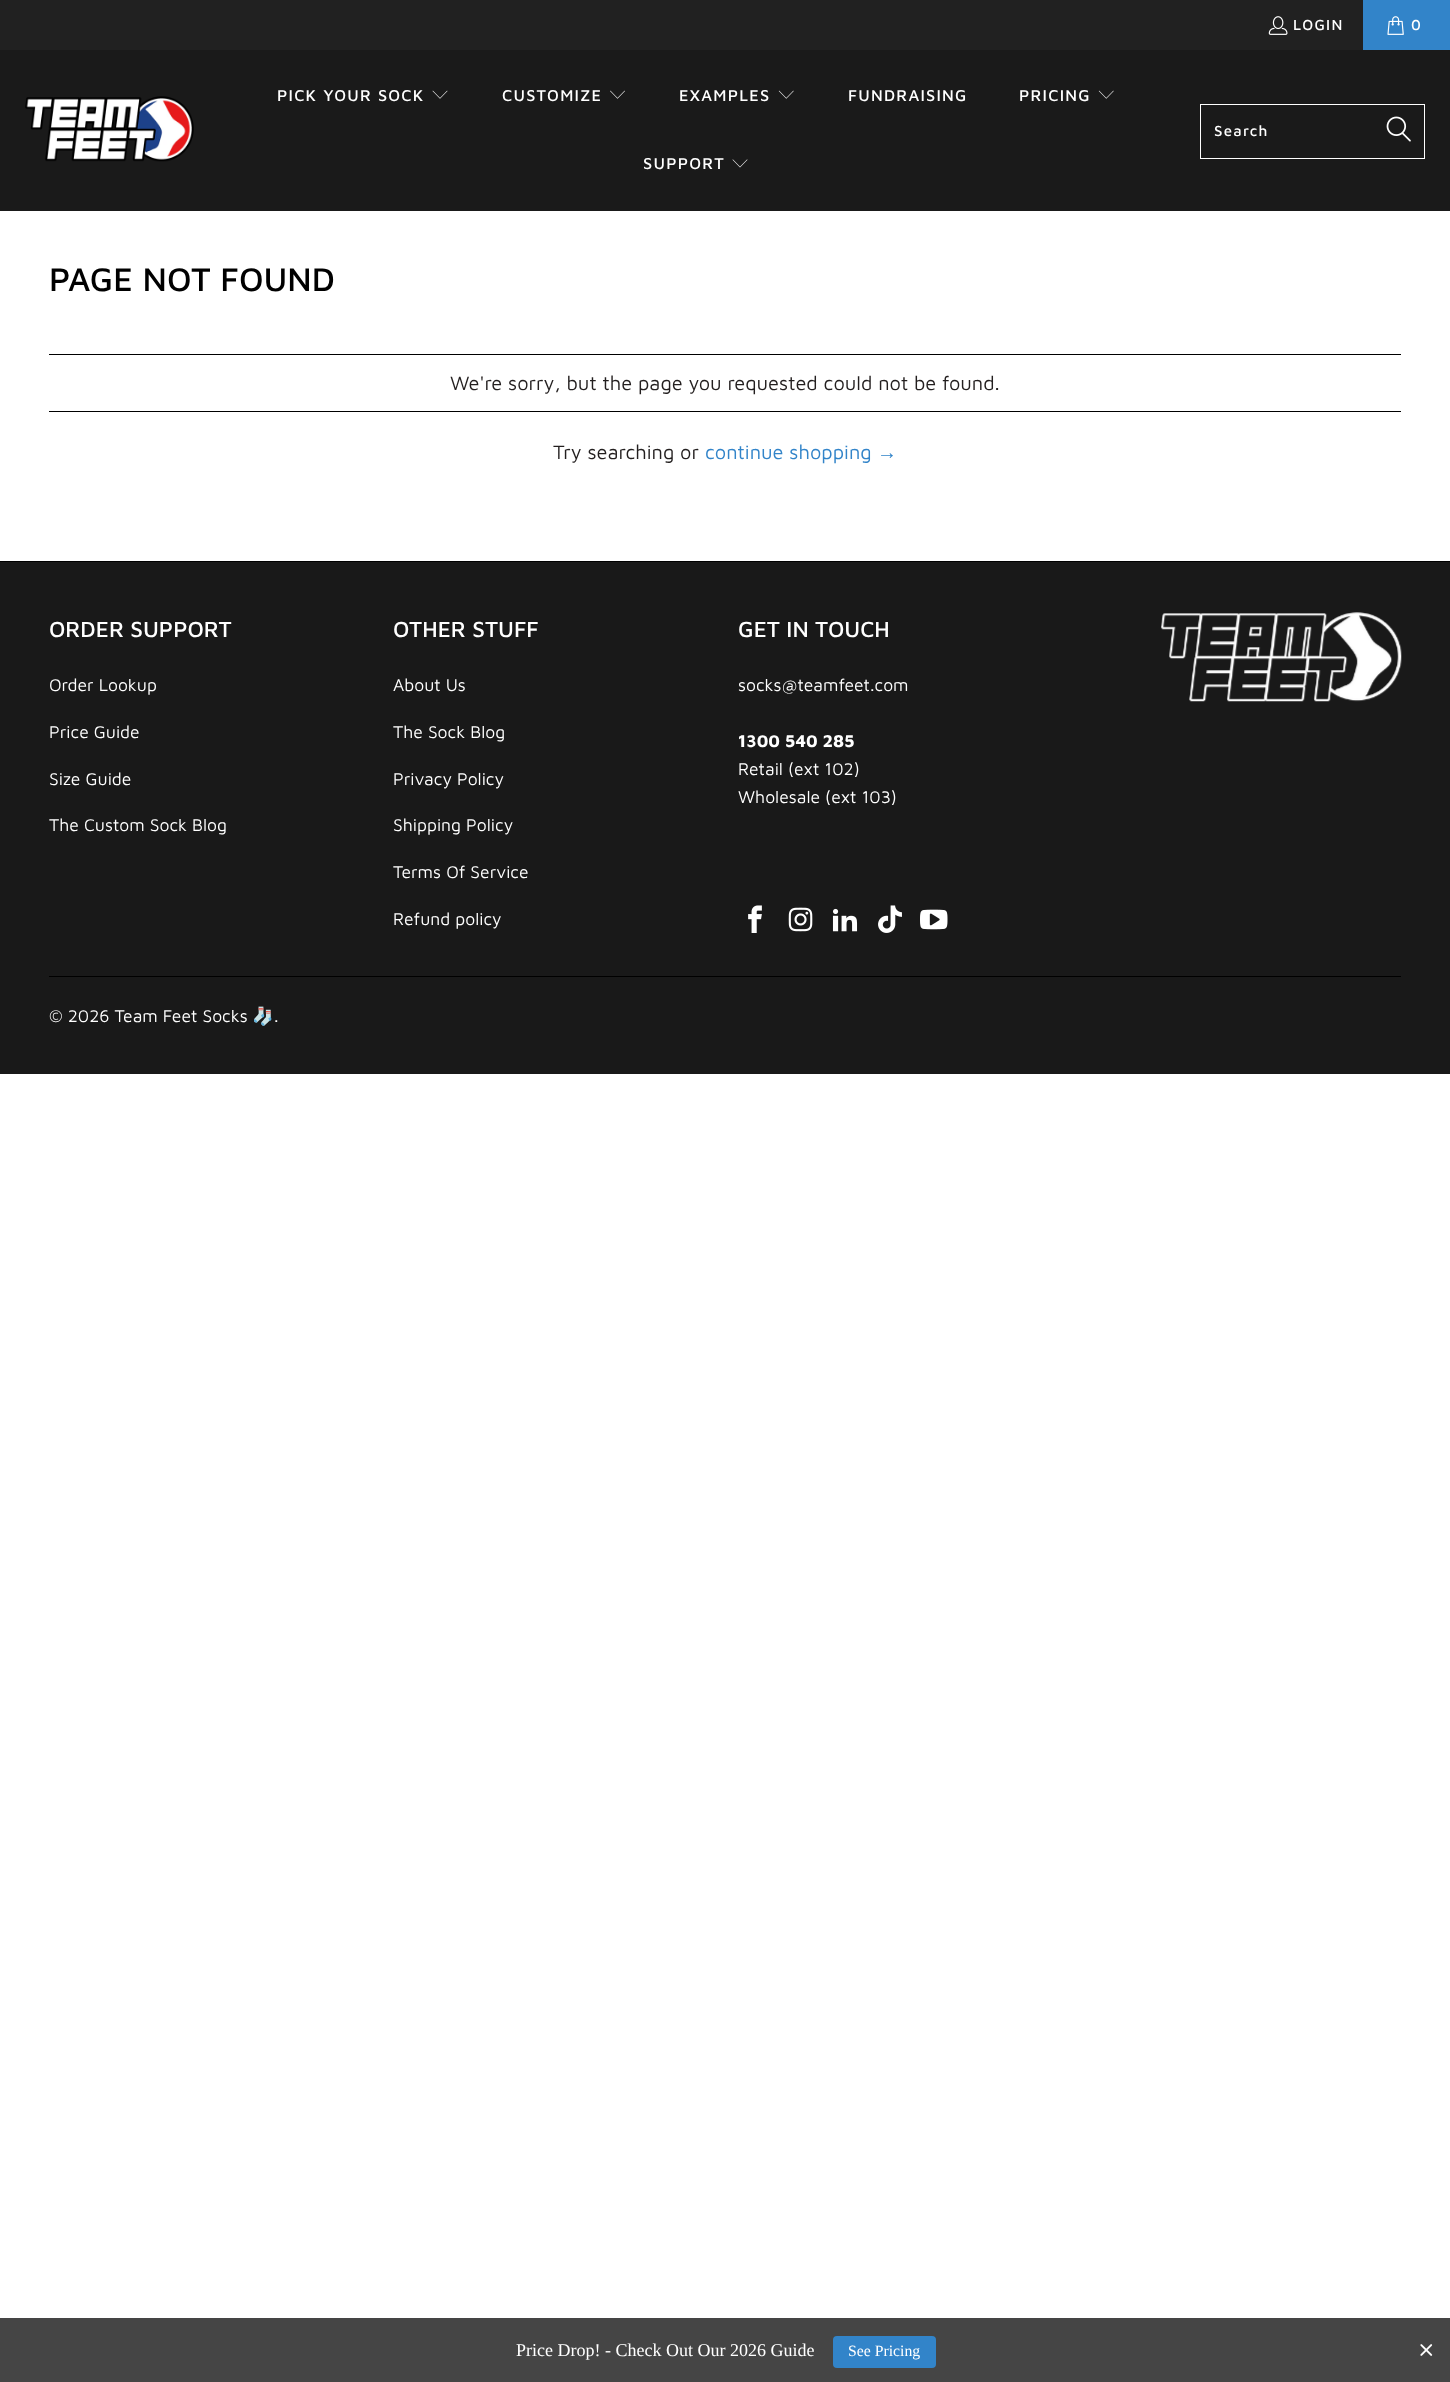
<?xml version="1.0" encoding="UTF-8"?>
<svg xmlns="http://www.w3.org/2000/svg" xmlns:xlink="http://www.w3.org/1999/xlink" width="1450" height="2382">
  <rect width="100%" height="100%" fill="#ffffff" />
  <rect width="1363" height="50" fill="#212121" />
  <image x="1268" y="16" width="20" height="19" xlink:href="image1.png" />
  <rect x="1363" width="87" height="50" fill="#3284c9" />
  <image x="1387" y="16" width="17" height="19" xlink:href="image2.png" />
  <rect y="50" width="1450" height="161" fill="#1a1a1a" />
  <image x="25" y="96" width="169" height="66" xlink:href="image3.png" />
  <image x="432" y="90" width="16" height="9" xlink:href="image4.png" />
  <image x="610" y="90" width="15" height="9" xlink:href="image5.png" />
  <image x="778" y="90" width="16" height="9" xlink:href="image6.png" />
  <image x="1098" y="90" width="16" height="9" xlink:href="image6.png" />
  <image x="732" y="159" width="16" height="9" xlink:href="image7.png" />
  <rect x="1200.5" y="104.5" width="224" height="54" fill="none" stroke="#ffffff" />
  <image x="1386" y="116" width="25" height="26" xlink:href="image8.png" />
  <rect x="49" y="354" width="1352" height="1" fill="#000000" />
  <rect x="49" y="411" width="1352" height="1" fill="#000000" />
  <rect y="562" width="1450" height="512" fill="#191919" />
  <rect y="561" width="1450" height="1" fill="#000000" />
  <image x="748" y="905" width="14" height="28" xlink:href="image9.png" />
  <image x="788" y="907" width="25" height="25" xlink:href="image10.png" />
  <image x="832" y="908" width="26" height="24" xlink:href="image11.png" />
  <image x="878" y="905" width="24" height="28" xlink:href="image12.png" />
  <image x="920" y="909" width="28" height="21" xlink:href="image13.png" />
  <image x="1161" y="612" width="241" height="90" xlink:href="image14.png" />
  <rect x="49" y="976" width="1352" height="1" fill="#000000" />
  <rect y="2318" width="1450" height="64" fill="#454545" />
  <rect x="833" y="2336" width="103" height="32" rx="4" fill="#3284c9" />
  <image x="1420" y="2344" width="13" height="12" xlink:href="image15.png" />
  <text x="1293" y="30" style="font-family: Maven Pro; font-size: 15px; font-weight: 500; letter-spacing: 1.25px; fill: #ffffff">LOGIN</text>
  <text x="1411" y="30" style="font-family: Maven Pro; font-size: 15px; font-weight: 500; letter-spacing: 1.25px; fill: #ffffff">0</text>
  <text x="277" y="101" style="font-family: Maven Pro; font-size: 16.25px; font-weight: 500; letter-spacing: 1.25px; fill: #ffffff">PICK YOUR SOCK</text>
  <text x="502" y="101" style="font-family: Maven Pro; font-size: 16.25px; font-weight: 500; letter-spacing: 1.25px; fill: #ffffff">CUSTOMIZE</text>
  <text x="679" y="101" style="font-family: Maven Pro; font-size: 16.25px; font-weight: 500; letter-spacing: 1.25px; fill: #ffffff">EXAMPLES</text>
  <text x="848" y="101" style="font-family: Maven Pro; font-size: 16.25px; font-weight: 500; letter-spacing: 1.25px; fill: #ffffff">FUNDRAISING</text>
  <text x="1019" y="101" style="font-family: Maven Pro; font-size: 16.25px; font-weight: 500; letter-spacing: 1.25px; fill: #ffffff">PRICING</text>
  <text x="643" y="169" style="font-family: Maven Pro; font-size: 16.25px; font-weight: 500; letter-spacing: 1.25px; fill: #ffffff">SUPPORT</text>
  <text x="1214" y="136" style="font-family: Maven Pro; font-size: 15px; font-weight: 500; letter-spacing: 1.25px; fill: #ffffff">Search</text>
  <text x="49" y="291" style="font-family: Maven Pro; font-size: 33.75px; font-weight: 500; fill: #000000">PAGE NOT FOUND</text>
  <text x="450" y="390" style="font-family: Maven Pro; font-size: 20px; fill: #231f1f">We're sorry, but the page you requested could not be found.</text>
  <text x="553" y="459" style="font-family: Maven Pro; font-size: 20px; fill: #231f1f">Try searching or</text>
  <text x="705" y="459" style="font-family: Maven Pro; font-size: 20px; fill: #3284c9">continue shopping</text>
  <text x="877" y="459" style="font-family: Liberation Sans; font-size: 20px; fill: #3284c9">→</text>
  <text x="49" y="637" style="font-family: Maven Pro; font-size: 22.5px; font-weight: 500; fill: #ffffff">ORDER SUPPORT</text>
  <text x="49" y="691" style="font-family: Maven Pro; font-size: 17.5px; fill: #ffffff">Order Lookup</text>
  <text x="49" y="738" style="font-family: Maven Pro; font-size: 17.5px; fill: #ffffff">Price Guide</text>
  <text x="49" y="785" style="font-family: Maven Pro; font-size: 17.5px; fill: #ffffff">Size Guide</text>
  <text x="49" y="831" style="font-family: Maven Pro; font-size: 17.5px; fill: #ffffff">The Custom Sock Blog</text>
  <text x="393" y="637" style="font-family: Maven Pro; font-size: 22.5px; font-weight: 500; fill: #ffffff">OTHER STUFF</text>
  <text x="393" y="691" style="font-family: Maven Pro; font-size: 17.5px; fill: #ffffff">About Us</text>
  <text x="393" y="738" style="font-family: Maven Pro; font-size: 17.5px; fill: #ffffff">The Sock Blog</text>
  <text x="393" y="785" style="font-family: Maven Pro; font-size: 17.5px; fill: #ffffff">Privacy Policy</text>
  <text x="393" y="831" style="font-family: Maven Pro; font-size: 17.5px; fill: #ffffff">Shipping Policy</text>
  <text x="393" y="878" style="font-family: Maven Pro; font-size: 17.5px; fill: #ffffff">Terms Of Service</text>
  <text x="393" y="925" style="font-family: Maven Pro; font-size: 17.5px; fill: #ffffff">Refund policy</text>
  <text x="738" y="637" style="font-family: Maven Pro; font-size: 22.5px; font-weight: 500; fill: #ffffff">GET IN TOUCH</text>
  <text x="738" y="691" style="font-family: Maven Pro; font-size: 17.5px; fill: #ffffff">socks@teamfeet.com</text>
  <text x="738" y="747" style="font-family: Maven Pro; font-size: 17.5px; font-weight: bold; fill: #ffffff">1300 540 285</text>
  <text x="738" y="775" style="font-family: Maven Pro; font-size: 17.5px; fill: #ffffff">Retail (ext 102)</text>
  <text x="738" y="803" style="font-family: Maven Pro; font-size: 17.5px; fill: #ffffff">Wholesale (ext 103)</text>
  <text x="49" y="1022" style="font-family: Maven Pro; font-size: 17.5px; fill: #ffffff">© 2026 Team Feet Socks</text>
  <text x="252" y="1022" style="font-family: Noto Color Emoji; font-size: 17.5px; fill: #ffffff">🧦</text>
  <text x="274" y="1022" style="font-family: Maven Pro; font-size: 17.5px; fill: #ffffff">.</text>
  <text x="516" y="2356" style="font-family: Liberation Serif; font-size: 18px; fill: #ffffff">Price Drop! - Check Out Our 2026 Guide</text>
  <text x="848" y="2356" style="font-family: Liberation Serif; font-size: 15.75px; fill: #ffffff">See Pricing</text>
</svg>
